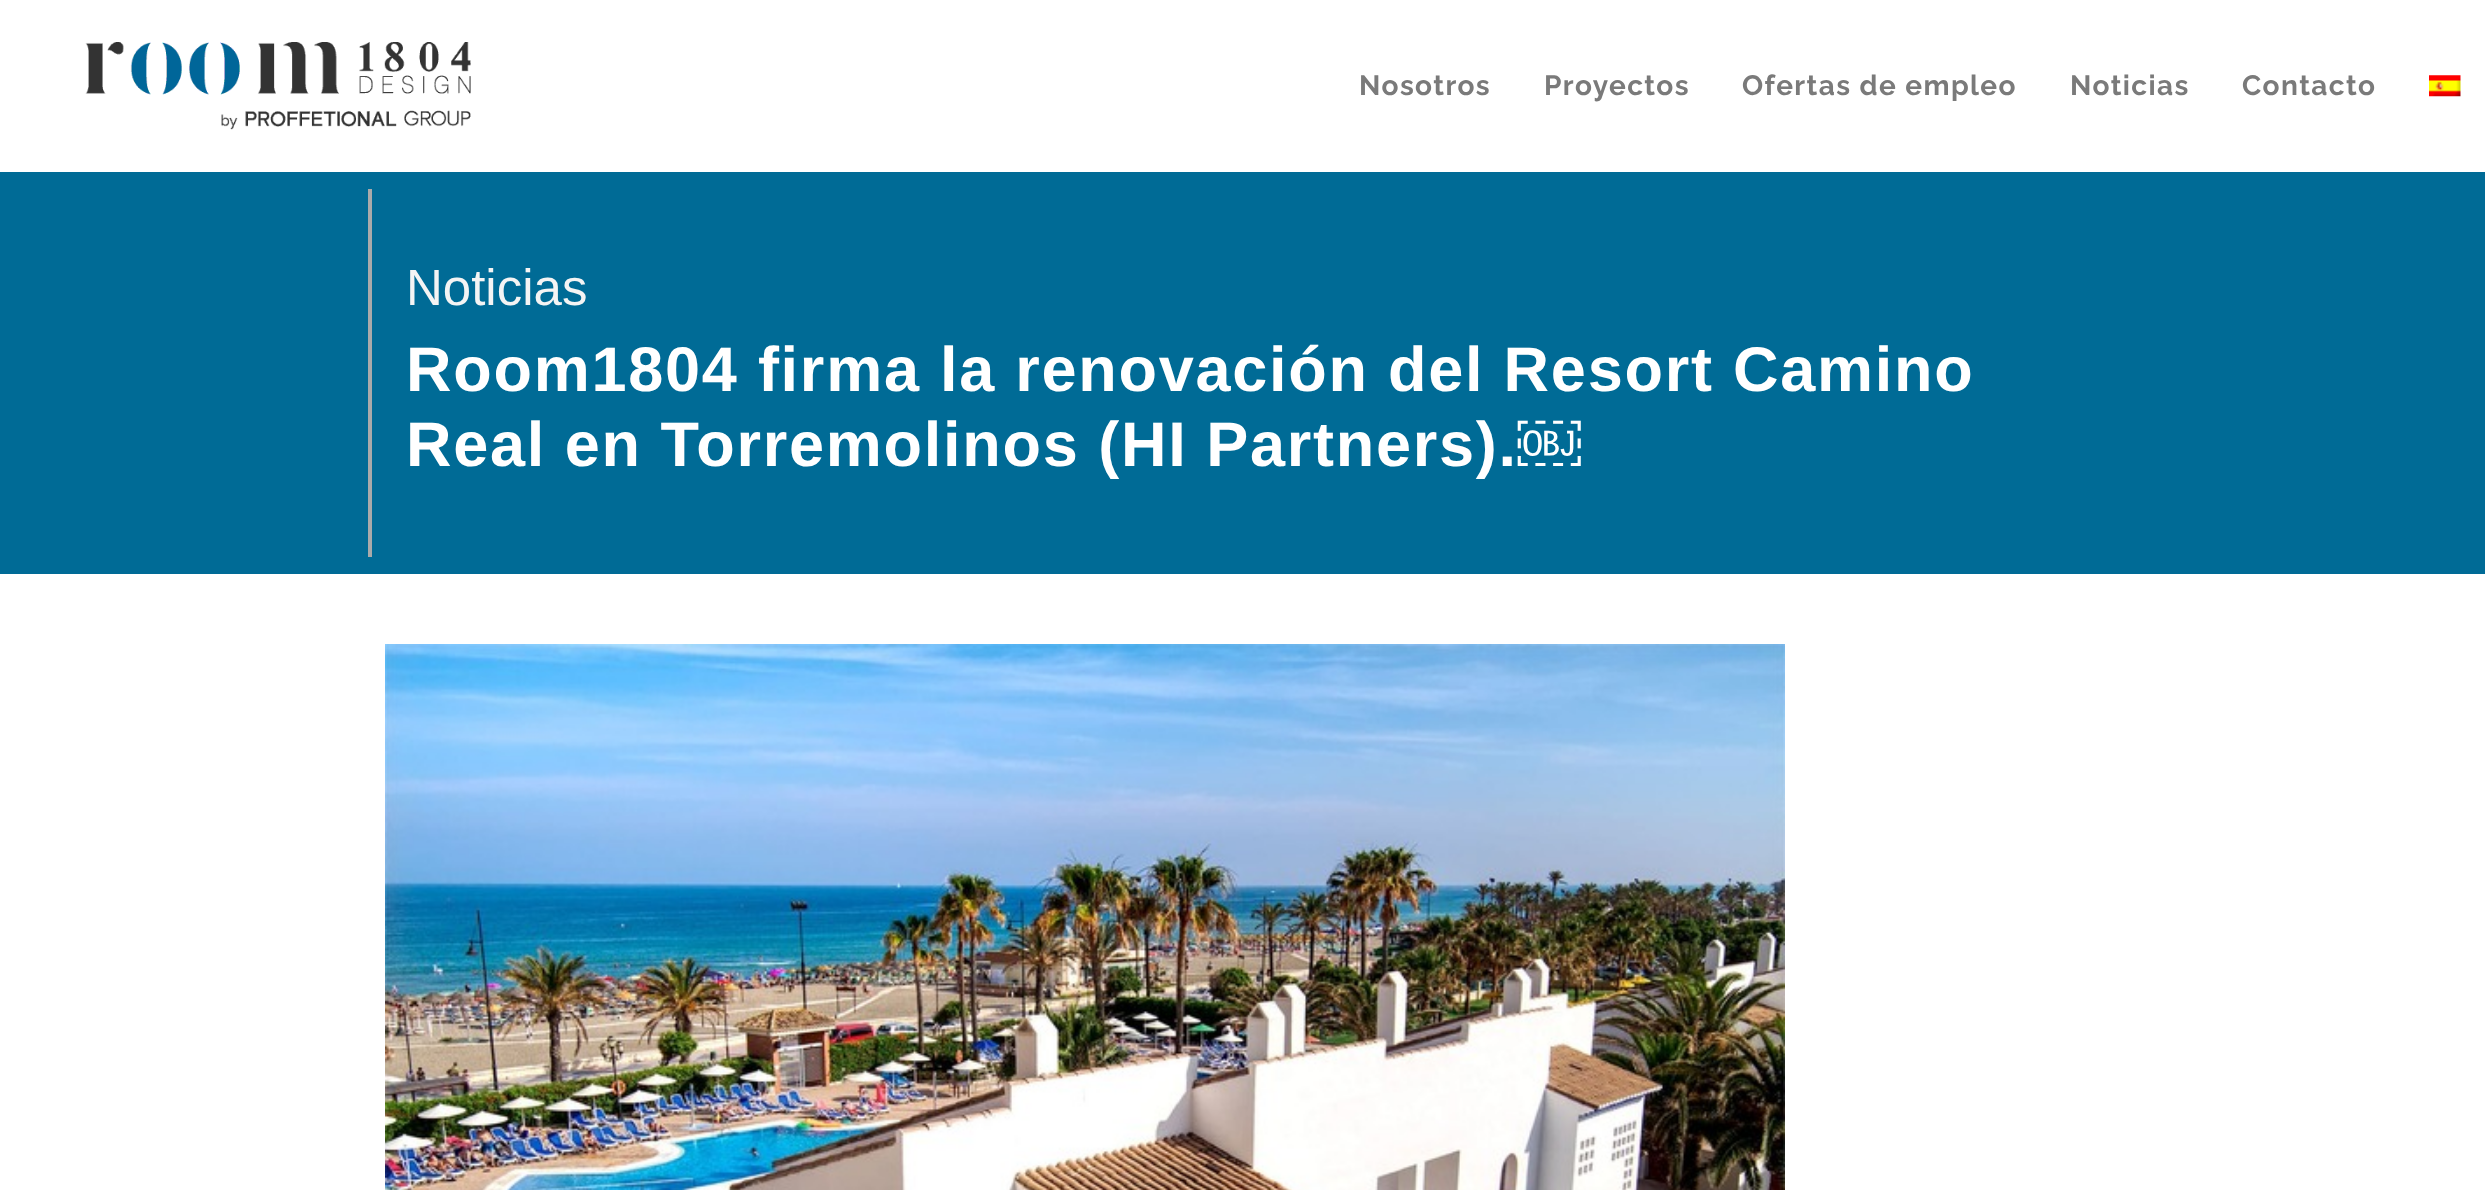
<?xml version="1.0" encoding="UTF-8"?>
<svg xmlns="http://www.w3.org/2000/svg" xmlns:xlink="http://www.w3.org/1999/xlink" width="2485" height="1190">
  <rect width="100%" height="100%" fill="#ffffff" />
  <image x="85" y="42" width="386" height="88" xlink:href="image1.png" />
  <image x="2429" y="75" width="32" height="22" xlink:href="image2.png" />
  <rect y="172" width="2485" height="402" fill="#006b96" />
  <rect x="368" y="189" width="4" height="368" fill="#aaaaaa" />
  <image x="385" y="644" width="1400" height="546" xlink:href="image3.png" />
  <text x="1359" y="95" style="font-family: Raleway; font-size: 28px; font-weight: bold; letter-spacing: 1.4px; fill: #7a7a7a">Nosotros</text>
  <text x="1544" y="95" style="font-family: Raleway; font-size: 28px; font-weight: bold; letter-spacing: 1.4px; fill: #7a7a7a">Proyectos</text>
  <text x="1742" y="95" style="font-family: Raleway; font-size: 28px; font-weight: bold; letter-spacing: 1.4px; fill: #7a7a7a">Ofertas de empleo</text>
  <text x="2070" y="95" style="font-family: Raleway; font-size: 28px; font-weight: bold; letter-spacing: 1.4px; fill: #7a7a7a">Noticias</text>
  <text x="2242" y="95" style="font-family: Raleway; font-size: 28px; font-weight: bold; letter-spacing: 1.4px; fill: #7a7a7a">Contacto</text>
  <text x="406" y="305" style="font-family: Liberation Sans; font-size: 51px; fill: #f4f4f4">Noticias</text>
  <text x="406" y="391" style="font-family: Liberation Sans; font-size: 63px; font-weight: bold; letter-spacing: 1.75px; fill: #ffffff">Room1804 firma la renovación del Resort Camino</text>
  <text x="406" y="466" word-spacing="-0.5" style="font-family: Liberation Sans; font-size: 63px; font-weight: bold; letter-spacing: 1.75px; fill: #ffffff">Real en Torremolinos (HI Partners).￼</text>
</svg>
